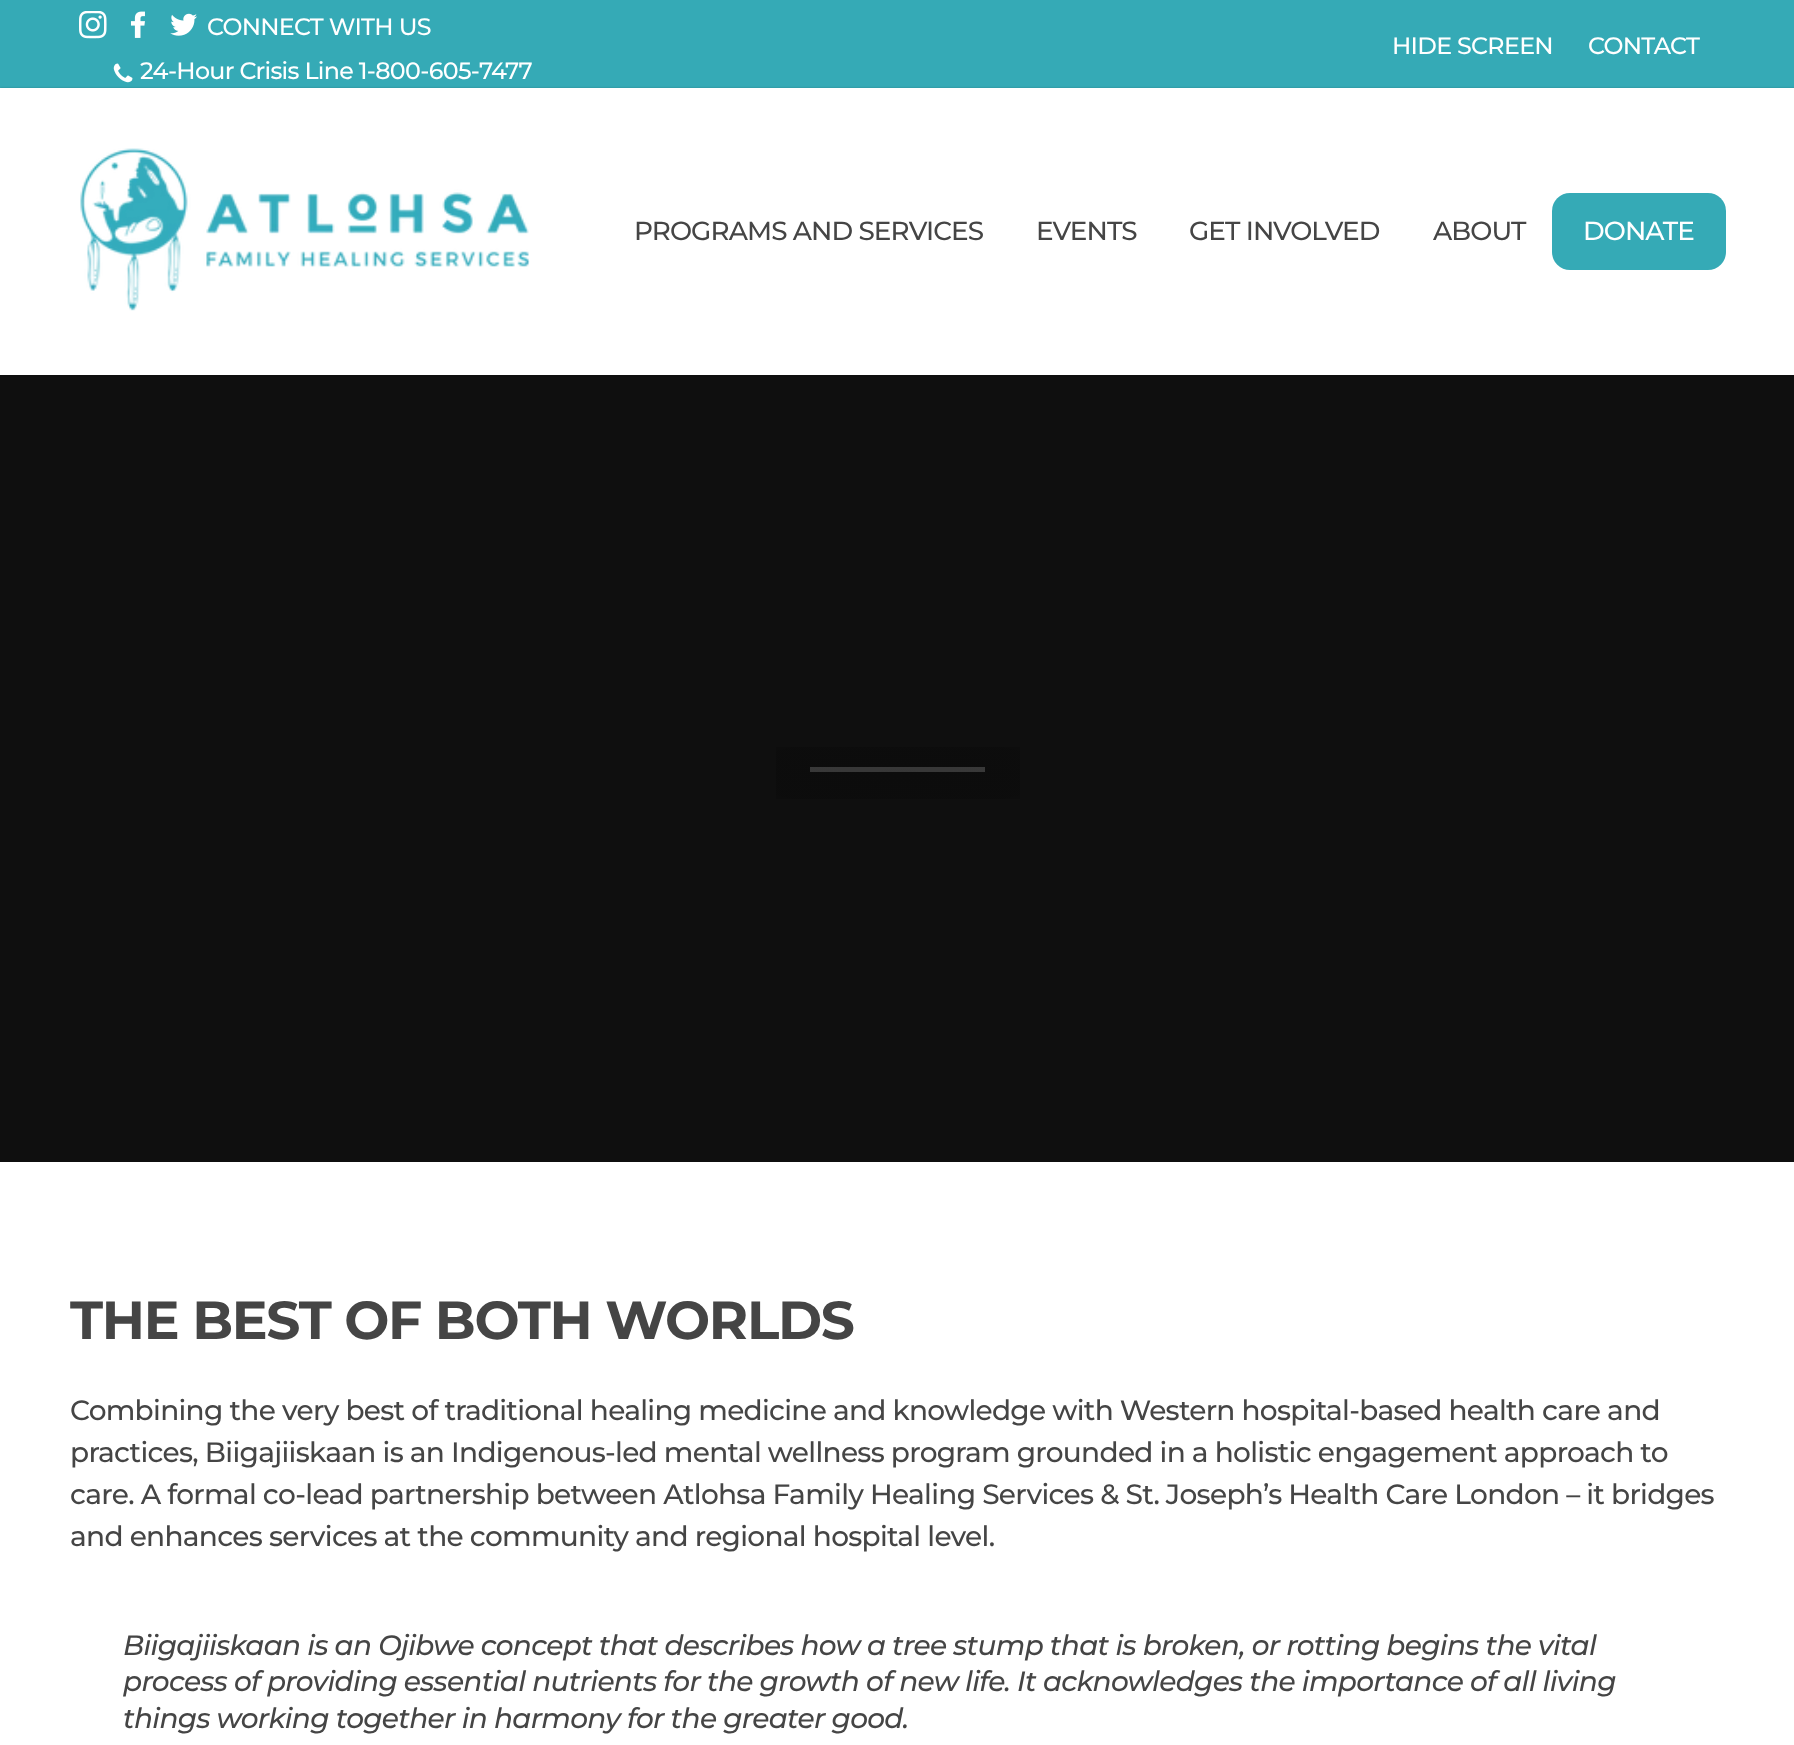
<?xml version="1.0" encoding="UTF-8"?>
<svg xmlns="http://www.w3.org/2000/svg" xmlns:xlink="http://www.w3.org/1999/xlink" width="1794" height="1745">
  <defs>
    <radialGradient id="g1" gradientUnits="userSpaceOnUse" cx="0" cy="0" r="1" gradientTransform="matrix(1594 0 0 343 898 773)"><stop offset="0" stop-color="#000000" stop-opacity="0.2" /><stop offset="0.6" stop-color="#000000" stop-opacity="0" /></radialGradient>
  </defs>
  <rect width="100%" height="100%" fill="#ffffff" />
  <rect width="1794" height="88" fill="#35aab6" />
  <image x="79" y="11" width="28" height="28" xlink:href="image1.png" />
  <image x="130" y="11" width="15" height="27" xlink:href="image2.png" />
  <image x="170" y="13" width="27" height="23" xlink:href="image3.png" />
  <image x="113" y="63" width="20" height="20" xlink:href="image4.png" />
  <rect y="375" width="1794" height="787" fill="#0f0f0f" />
  <rect y="88" width="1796" height="287" fill="#000000" fill-opacity="0.2" filter="blur(1px)" />
  <rect y="88" width="1794" height="287" fill="#ffffff" />
  <image x="80" y="148" width="450" height="163" xlink:href="image5.png" />
  <rect x="1552" y="193" width="174" height="77" rx="18" fill="#35aab6" />
  <rect x="810" y="767" width="175" height="5" fill="#454545" />
  <rect x="776" y="747" width="244" height="52" fill="url(#g1)" />
  <text x="207" y="35" style="font-family: Montserrat; font-size: 23.75px; font-weight: 500; letter-spacing: -0.7px; fill: #ffffff">CONNECT WITH US</text>
  <text x="140" y="79" style="font-family: Montserrat; font-size: 23.75px; font-weight: 500; letter-spacing: -0.7px; fill: #ffffff">24-Hour Crisis Line 1-800-605-7477</text>
  <text x="1392" y="54" style="font-family: Montserrat; font-size: 23.75px; font-weight: 500; letter-spacing: -0.7px; fill: #ffffff">HIDE SCREEN</text>
  <text x="1588" y="54" style="font-family: Montserrat; font-size: 23.75px; font-weight: 500; letter-spacing: -0.7px; fill: #ffffff">CONTACT</text>
  <text x="634" y="240" style="font-family: Montserrat; font-size: 26.25px; font-weight: 500; letter-spacing: -0.9px; fill: #454545">PROGRAMS AND SERVICES</text>
  <text x="1036" y="240" style="font-family: Montserrat; font-size: 26.25px; font-weight: 500; letter-spacing: -0.9px; fill: #454545">EVENTS</text>
  <text x="1189" y="240" style="font-family: Montserrat; font-size: 26.25px; font-weight: 500; letter-spacing: -0.9px; fill: #454545">GET INVOLVED</text>
  <text x="1433" y="240" style="font-family: Montserrat; font-size: 26.25px; font-weight: 500; letter-spacing: -0.9px; fill: #454545">ABOUT</text>
  <text x="1583" y="240" style="font-family: Montserrat; font-size: 26.25px; font-weight: 500; letter-spacing: -0.9px; fill: #ffffff">DONATE</text>
  <text x="70" y="1339" style="font-family: Montserrat; font-size: 53.5px; font-weight: bold; letter-spacing: -1.3px; fill: #454545">THE BEST OF BOTH WORLDS</text>
  <text x="70" y="1420" style="font-family: Montserrat; font-size: 28px; font-weight: 500; letter-spacing: -0.7px; fill: #454545">Combining the very best of traditional healing medicine and knowledge with Western hospital-based health care and</text>
  <text x="70" y="1462" style="font-family: Montserrat; font-size: 28px; font-weight: 500; letter-spacing: -0.7px; fill: #454545">practices, Biigajiiskaan is an Indigenous-led mental wellness program grounded in a holistic engagement approach to</text>
  <text x="70" y="1504" style="font-family: Montserrat; font-size: 28px; font-weight: 500; letter-spacing: -0.7px; fill: #454545">care. A formal co-lead partnership between Atlohsa Family Healing Services &amp; St. Joseph’s Health Care London – it bridges</text>
  <text x="70" y="1546" style="font-family: Montserrat; font-size: 28px; font-weight: 500; letter-spacing: -0.7px; fill: #454545">and enhances services at the community and regional hospital level.</text>
  <text x="123" y="1655" style="font-family: Montserrat; font-size: 28px; font-weight: 500; font-style: italic; letter-spacing: -0.7px; fill: #454545">Biigajiiskaan is an Ojibwe concept that describes how a tree stump that is broken, or rotting begins the vital</text>
  <text x="123" y="1691" style="font-family: Montserrat; font-size: 28px; font-weight: 500; font-style: italic; letter-spacing: -0.7px; fill: #454545">process of providing essential nutrients for the growth of new life. It acknowledges the importance of all living</text>
  <text x="123" y="1728" style="font-family: Montserrat; font-size: 28px; font-weight: 500; font-style: italic; letter-spacing: -0.7px; fill: #454545">things working together in harmony for the greater good.</text>
</svg>
